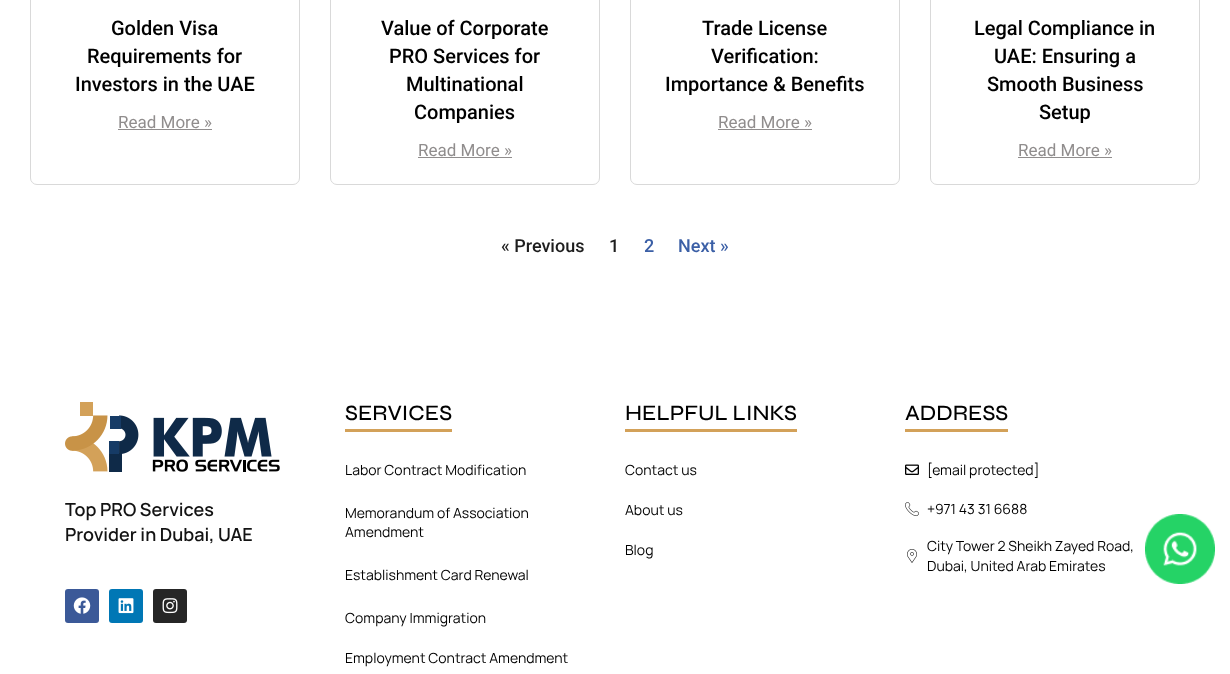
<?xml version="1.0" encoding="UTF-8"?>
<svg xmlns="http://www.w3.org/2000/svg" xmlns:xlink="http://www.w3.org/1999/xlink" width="1230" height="674">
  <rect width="100%" height="100%" fill="#ffffff" />
  <rect x="30.5" y="-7.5" width="269" height="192" rx="6.5" fill="none" stroke="#d9d9d9" />
  <rect x="118" y="129" width="94" height="1" fill="#908d8d" />
  <rect x="330.5" y="-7.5" width="269" height="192" rx="6.5" fill="none" stroke="#d9d9d9" />
  <rect x="418" y="157" width="94" height="1" fill="#908d8d" />
  <rect x="630.5" y="-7.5" width="269" height="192" rx="6.5" fill="none" stroke="#d9d9d9" />
  <rect x="718" y="129" width="94" height="1" fill="#908d8d" />
  <rect x="930.5" y="-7.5" width="269" height="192" rx="6.5" fill="none" stroke="#d9d9d9" />
  <rect x="1018" y="157" width="94" height="1" fill="#908d8d" />
  <image x="65" y="402" width="215" height="70" xlink:href="image1.png" />
  <rect x="65" y="589" width="34" height="34" rx="3" fill="#3b5998" />
  <image x="73" y="597" width="18" height="17" xlink:href="image2.png" />
  <rect x="109" y="589" width="34" height="34" rx="3" fill="#0077b5" />
  <image x="118" y="598" width="16" height="16" xlink:href="image3.png" />
  <rect x="153" y="589" width="34" height="34" rx="3" fill="#262626" />
  <image x="162" y="598" width="16" height="16" xlink:href="image4.png" />
  <rect x="345" y="429" width="107" height="3" fill="#d3a159" />
  <rect x="625" y="429" width="172" height="3" fill="#d3a159" />
  <rect x="905" y="429" width="103" height="3" fill="#d3a159" />
  <image x="905" y="464" width="14" height="11" xlink:href="image5.png" />
  <image x="905" y="502" width="14" height="15" xlink:href="image6.png" />
  <image x="907" y="549" width="10" height="14" xlink:href="image7.png" />
  <image x="1145" y="514" width="70" height="70" xlink:href="image8.png" />
  <text x="111" y="35" style="font-family: Roboto; font-size: 20px; font-weight: 500; fill: #000000">Golden Visa</text>
  <text x="87" y="63" style="font-family: Roboto; font-size: 20px; font-weight: 500; fill: #000000">Requirements for</text>
  <text x="75" y="91" style="font-family: Roboto; font-size: 20px; font-weight: 500; fill: #000000">Investors in the UAE</text>
  <text x="118" y="128" style="font-family: Roboto; font-size: 17px; fill: #908d8d">Read More »</text>
  <text x="381" y="35" style="font-family: Roboto; font-size: 20px; font-weight: 500; fill: #000000">Value of Corporate</text>
  <text x="389" y="63" style="font-family: Roboto; font-size: 20px; font-weight: 500; fill: #000000">PRO Services for</text>
  <text x="406" y="91" style="font-family: Roboto; font-size: 20px; font-weight: 500; fill: #000000">Multinational</text>
  <text x="414" y="119" style="font-family: Roboto; font-size: 20px; font-weight: 500; fill: #000000">Companies</text>
  <text x="418" y="156" style="font-family: Roboto; font-size: 17px; fill: #908d8d">Read More »</text>
  <text x="702" y="35" style="font-family: Roboto; font-size: 20px; font-weight: 500; fill: #000000">Trade License</text>
  <text x="711" y="63" style="font-family: Roboto; font-size: 20px; font-weight: 500; fill: #000000">Verification:</text>
  <text x="665" y="91" style="font-family: Roboto; font-size: 20px; font-weight: 500; fill: #000000">Importance &amp; Benefits</text>
  <text x="718" y="128" style="font-family: Roboto; font-size: 17px; fill: #908d8d">Read More »</text>
  <text x="974" y="35" style="font-family: Roboto; font-size: 20px; font-weight: 500; fill: #000000">Legal Compliance in</text>
  <text x="994" y="63" style="font-family: Roboto; font-size: 20px; font-weight: 500; fill: #000000">UAE: Ensuring a</text>
  <text x="987" y="91" style="font-family: Roboto; font-size: 20px; font-weight: 500; fill: #000000">Smooth Business</text>
  <text x="1039" y="119" style="font-family: Roboto; font-size: 20px; font-weight: 500; fill: #000000">Setup</text>
  <text x="1018" y="156" style="font-family: Roboto; font-size: 17px; fill: #908d8d">Read More »</text>
  <text x="501" y="252" style="font-family: Roboto; font-size: 18px; font-weight: 500; fill: #1e1e1e">« Previous</text>
  <text x="609" y="252" style="font-family: Roboto; font-size: 18px; font-weight: 500; fill: #1e1e1e">1</text>
  <text x="644" y="252" style="font-family: Roboto; font-size: 18px; font-weight: 500; fill: #3b5fa6">2</text>
  <text x="678" y="252" style="font-family: Roboto; font-size: 18px; font-weight: 500; fill: #3b5fa6">Next »</text>
  <text x="65" y="516" style="font-family: Manrope; font-size: 18px; font-weight: 600; fill: #131313">Top PRO Services</text>
  <text x="65" y="541" style="font-family: Manrope; font-size: 18px; font-weight: 600; fill: #131313">Provider in Dubai, UAE</text>
  <text x="345" y="420" style="font-family: Syne; font-size: 22px; font-weight: 500; fill: #000000">SERVICES</text>
  <text x="345" y="475" style="font-family: Manrope; font-size: 14px; fill: #000000">Labor Contract Modification</text>
  <text x="345" y="518" style="font-family: Manrope; font-size: 14px; fill: #000000">Memorandum of Association</text>
  <text x="345" y="537" style="font-family: Manrope; font-size: 14px; fill: #000000">Amendment</text>
  <text x="345" y="580" style="font-family: Manrope; font-size: 14px; fill: #000000">Establishment Card Renewal</text>
  <text x="345" y="623" style="font-family: Manrope; font-size: 14px; fill: #000000">Company Immigration</text>
  <text x="345" y="663" style="font-family: Manrope; font-size: 14px; fill: #000000">Employment Contract Amendment</text>
  <text x="625" y="420" style="font-family: Syne; font-size: 22px; font-weight: 500; fill: #000000">HELPFUL LINKS</text>
  <text x="625" y="475" style="font-family: Manrope; font-size: 14px; fill: #000000">Contact us</text>
  <text x="625" y="515" style="font-family: Manrope; font-size: 14px; fill: #000000">About us</text>
  <text x="625" y="555" style="font-family: Manrope; font-size: 14px; fill: #000000">Blog</text>
  <text x="905" y="420" style="font-family: Syne; font-size: 22px; font-weight: 500; fill: #000000">ADDRESS</text>
  <text x="927" y="475" style="font-family: Manrope; font-size: 14px; fill: #000000">[email protected]</text>
  <text x="927" y="514" style="font-family: Manrope; font-size: 14px; fill: #000000">+971 43 31 6688</text>
  <text x="927" y="551" style="font-family: Manrope; font-size: 14px; fill: #000000">City Tower 2 Sheikh Zayed Road,</text>
  <text x="927" y="571" style="font-family: Manrope; font-size: 14px; fill: #000000">Dubai, United Arab Emirates</text>
</svg>
